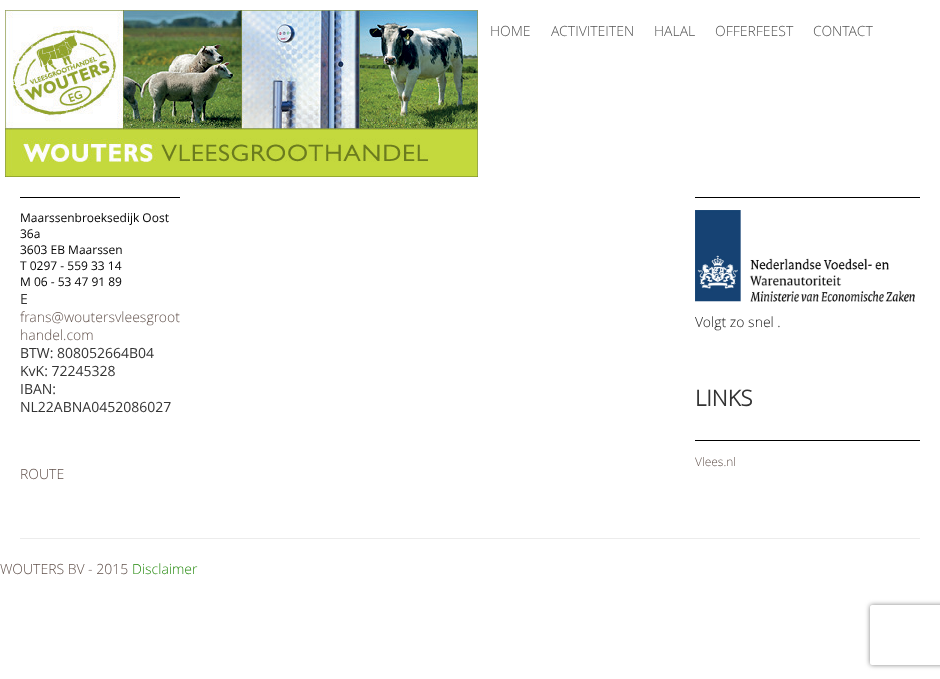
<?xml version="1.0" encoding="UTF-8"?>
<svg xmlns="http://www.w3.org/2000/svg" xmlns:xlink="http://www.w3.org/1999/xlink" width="940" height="679">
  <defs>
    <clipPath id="clip1"><path d="M 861 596 h 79 v 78 h -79 z m 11 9 h 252 c 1 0 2 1 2 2 v 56 c 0 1 -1 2 -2 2 h -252 c -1 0 -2 -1 -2 -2 v -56 c 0 -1 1 -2 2 -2 z" clip-rule="evenodd" /></clipPath>
  </defs>
  <rect width="100%" height="100%" fill="#ffffff" />
  <image x="5" y="10" width="473" height="167" xlink:href="image1.png" />
  <rect x="20" y="538" width="900" height="1" fill="#ececec" />
  <rect x="20" y="197" width="160" height="1" fill="#000000" />
  <rect x="695" y="197" width="225" height="1" fill="#000000" />
  <image x="695" y="210" width="220" height="92" xlink:href="image2.png" />
  <rect x="695" y="440" width="225" height="1" fill="#000000" />
  <g clip-path="url(#clip1)">
    <rect x="870" y="605" width="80" height="60" rx="2" fill="#808080" filter="blur(2.5px)" />
  </g>
  <text x="490" y="36" style="font-family: Open Sans; font-size: 14px; font-weight: 300; fill: #535353">HOME</text>
  <text x="551" y="36" style="font-family: Open Sans; font-size: 14px; font-weight: 300; fill: #535353">ACTIVITEITEN</text>
  <text x="654" y="36" style="font-family: Open Sans; font-size: 14px; font-weight: 300; fill: #535353">HALAL</text>
  <text x="715" y="36" style="font-family: Open Sans; font-size: 14px; font-weight: 300; fill: #535353">OFFERFEEST</text>
  <text x="813" y="36" style="font-family: Open Sans; font-size: 14px; font-weight: 300; fill: #535353">CONTACT</text>
  <text x="20" y="222" style="font-family: Open Sans; font-size: 12px; fill: #000000">Maarssenbroeksedijk Oost</text>
  <text x="20" y="238" style="font-family: Open Sans; font-size: 12px; fill: #000000">36a</text>
  <text x="20" y="254" style="font-family: Open Sans; font-size: 12px; fill: #000000">3603 EB Maarssen</text>
  <text x="20" y="270" style="font-family: Open Sans; font-size: 12px; fill: #000000">T 0297 - 559 33 14</text>
  <text x="20" y="286" style="font-family: Open Sans; font-size: 12px; fill: #000000">M 06 - 53 47 91 89</text>
  <text x="20" y="304" style="font-family: Open Sans; font-size: 14px; fill: #333333">E</text>
  <text x="20" y="322" style="font-family: Open Sans; font-size: 14px; font-weight: 300; fill: #62524c">frans@woutersvleesgroot</text>
  <text x="20" y="340" style="font-family: Open Sans; font-size: 14px; font-weight: 300; fill: #62524c">handel.com</text>
  <text x="20" y="358" style="font-family: Open Sans; font-size: 14px; fill: #333333">BTW: 808052664B04</text>
  <text x="20" y="376" style="font-family: Open Sans; font-size: 14px; fill: #333333">KvK: 72245328</text>
  <text x="20" y="394" style="font-family: Open Sans; font-size: 14px; fill: #333333">IBAN:</text>
  <text x="20" y="412" style="font-family: Open Sans; font-size: 14px; fill: #333333">NL22ABNA0452086027</text>
  <text x="20" y="479" style="font-family: Open Sans; font-size: 14px; font-weight: 300; fill: #62524c">ROUTE</text>
  <text x="695" y="327" style="font-family: Open Sans; font-size: 14px; font-weight: 300; fill: #131313">Volgt zo snel .</text>
  <text x="695" y="406" style="font-family: Open Sans; font-size: 22px; font-weight: bold; fill: #333333">LINKS</text>
  <text x="695" y="466" style="font-family: Open Sans; font-size: 12px; font-weight: 300; fill: #62524c">Vlees.nl</text>
  <text x="0" y="574" style="font-family: Open Sans; font-size: 14px; font-weight: 300; fill: #62524c">WOUTERS BV - 2015</text>
  <text x="132" y="574" style="font-family: Open Sans; font-size: 14px; font-weight: 300; fill: #24890d">Disclaimer</text>
</svg>
